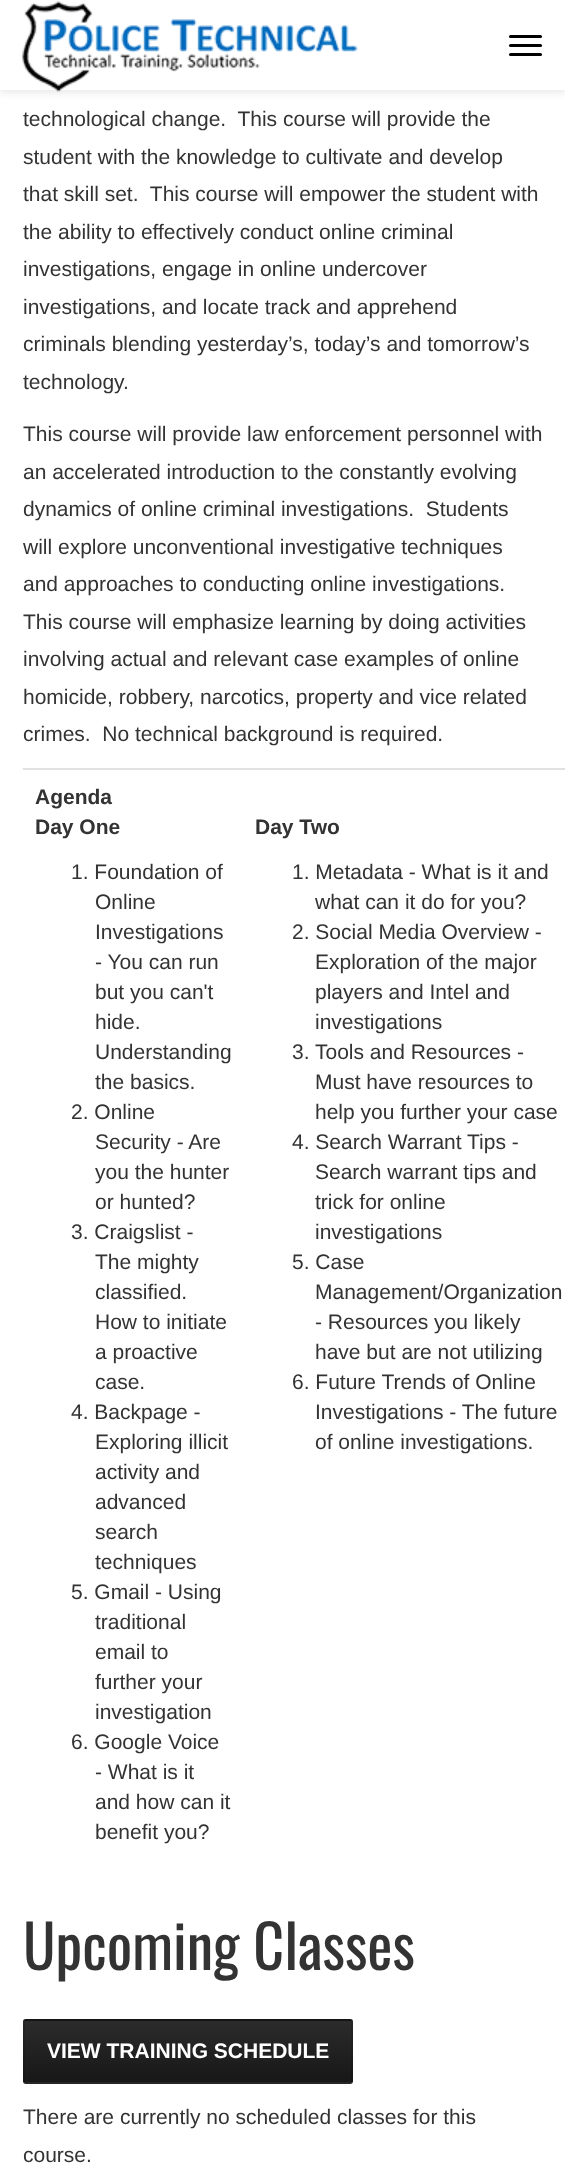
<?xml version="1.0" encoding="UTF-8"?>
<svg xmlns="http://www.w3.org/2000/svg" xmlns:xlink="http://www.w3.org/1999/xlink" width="565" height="2184">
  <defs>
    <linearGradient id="g1" gradientUnits="userSpaceOnUse" x1="24" y1="2021" x2="24" y2="1959"><stop offset="0" stop-color="#000000" stop-opacity="0.08" /><stop offset="0.5" stop-color="#808080" stop-opacity="0.08" /><stop offset="1" stop-color="#ffffff" stop-opacity="0.08" /></linearGradient>
    <linearGradient id="g2" gradientUnits="userSpaceOnUse" x1="24" y1="2082" x2="24" y2="2021"><stop offset="0" stop-color="#000000" stop-opacity="0.08" /><stop offset="0.5" stop-color="#808080" stop-opacity="0.08" /><stop offset="1" stop-color="#ffffff" stop-opacity="0.08" /></linearGradient>
    <linearGradient id="g3" gradientUnits="userSpaceOnUse" x1="24" y1="2144" x2="24" y2="2082"><stop offset="0" stop-color="#000000" stop-opacity="0.08" /><stop offset="0.5" stop-color="#808080" stop-opacity="0.08" /><stop offset="1" stop-color="#ffffff" stop-opacity="0.08" /></linearGradient>
  </defs>
  <rect width="100%" height="100%" fill="#ffffff" />
  <rect y="2" width="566" height="90" fill="#000000" fill-opacity="0.1" filter="blur(4px)" />
  <rect width="565" height="90" fill="#ffffff" />
  <image x="22" y="1" width="336" height="91" xlink:href="image1.png" />
  <rect x="509" y="35" width="33" height="3" rx="1.5" fill="#000000" />
  <rect x="509" y="44" width="33" height="3" rx="1.5" fill="#000000" />
  <rect x="509" y="53" width="33" height="3" rx="1.5" fill="#000000" />
  <rect x="23" y="768" width="542" height="2" fill="#e1e1e1" />
  <rect x="23" y="2019" width="330" height="65" rx="3" fill="#191919" />
  <rect x="23" y="2019" width="330" height="2" fill="url(#g1)" />
  <rect x="23" y="2021" width="330" height="61" fill="url(#g2)" />
  <rect x="23" y="2082" width="330" height="2" fill="url(#g3)" />
  <rect x="24" y="2020" width="328" height="63" rx="2" fill="none" stroke="#000000" stroke-opacity="0.1" stroke-width="2" />
  <text x="23" y="126" style="font-family: Arimo; font-size: 21px; fill: #333333" xml:space="preserve">technological change.  This course will provide the</text>
  <text x="23" y="164" style="font-family: Arimo; font-size: 21px; fill: #333333">student with the knowledge to cultivate and develop</text>
  <text x="23" y="201" style="font-family: Arimo; font-size: 21px; fill: #333333" xml:space="preserve">that skill set.  This course will empower the student with</text>
  <text x="23" y="239" style="font-family: Arimo; font-size: 21px; fill: #333333">the ability to effectively conduct online criminal</text>
  <text x="23" y="276" style="font-family: Arimo; font-size: 21px; fill: #333333">investigations, engage in online undercover</text>
  <text x="23" y="314" style="font-family: Arimo; font-size: 21px; fill: #333333">investigations, and locate track and apprehend</text>
  <text x="23" y="351" style="font-family: Arimo; font-size: 21px; fill: #333333">criminals blending yesterday’s, today’s and tomorrow’s</text>
  <text x="23" y="389" style="font-family: Arimo; font-size: 21px; fill: #333333">technology.</text>
  <text x="23" y="441" style="font-family: Arimo; font-size: 21px; fill: #333333">This course will provide law enforcement personnel with</text>
  <text x="23" y="479" style="font-family: Arimo; font-size: 21px; fill: #333333">an accelerated introduction to the constantly evolving</text>
  <text x="23" y="516" style="font-family: Arimo; font-size: 21px; fill: #333333" xml:space="preserve">dynamics of online criminal investigations.  Students</text>
  <text x="23" y="554" style="font-family: Arimo; font-size: 21px; fill: #333333">will explore unconventional investigative techniques</text>
  <text x="23" y="591" style="font-family: Arimo; font-size: 21px; fill: #333333">and approaches to conducting online investigations.</text>
  <text x="23" y="629" style="font-family: Arimo; font-size: 21px; fill: #333333">This course will emphasize learning by doing activities</text>
  <text x="23" y="666" style="font-family: Arimo; font-size: 21px; fill: #333333">involving actual and relevant case examples of online</text>
  <text x="23" y="704" style="font-family: Arimo; font-size: 21px; fill: #333333">homicide, robbery, narcotics, property and vice related</text>
  <text x="23" y="741" style="font-family: Arimo; font-size: 21px; fill: #333333" xml:space="preserve">crimes.  No technical background is required.</text>
  <text x="35" y="804" style="font-family: Arimo; font-size: 21px; font-weight: bold; fill: #333333">Agenda</text>
  <text x="35" y="834" style="font-family: Arimo; font-size: 21px; font-weight: bold; fill: #333333">Day One</text>
  <text x="71" y="879" style="font-family: Arimo; font-size: 21px; fill: #333333">1. Foundation of</text>
  <text x="95" y="909" style="font-family: Arimo; font-size: 21px; fill: #333333">Online</text>
  <text x="95" y="939" style="font-family: Arimo; font-size: 21px; fill: #333333">Investigations</text>
  <text x="95" y="969" style="font-family: Arimo; font-size: 21px; fill: #333333">- You can run</text>
  <text x="95" y="999" style="font-family: Arimo; font-size: 21px; fill: #333333">but you can't</text>
  <text x="95" y="1029" style="font-family: Arimo; font-size: 21px; fill: #333333">hide.</text>
  <text x="95" y="1059" style="font-family: Arimo; font-size: 21px; fill: #333333">Understanding</text>
  <text x="95" y="1089" style="font-family: Arimo; font-size: 21px; fill: #333333">the basics.</text>
  <text x="71" y="1119" style="font-family: Arimo; font-size: 21px; fill: #333333">2. Online</text>
  <text x="95" y="1149" style="font-family: Arimo; font-size: 21px; fill: #333333">Security - Are</text>
  <text x="95" y="1179" style="font-family: Arimo; font-size: 21px; fill: #333333">you the hunter</text>
  <text x="95" y="1209" style="font-family: Arimo; font-size: 21px; fill: #333333">or hunted?</text>
  <text x="71" y="1239" style="font-family: Arimo; font-size: 21px; fill: #333333">3. Craigslist -</text>
  <text x="95" y="1269" style="font-family: Arimo; font-size: 21px; fill: #333333">The mighty</text>
  <text x="95" y="1299" style="font-family: Arimo; font-size: 21px; fill: #333333">classified.</text>
  <text x="95" y="1329" style="font-family: Arimo; font-size: 21px; fill: #333333">How to initiate</text>
  <text x="95" y="1359" style="font-family: Arimo; font-size: 21px; fill: #333333">a proactive</text>
  <text x="95" y="1389" style="font-family: Arimo; font-size: 21px; fill: #333333">case.</text>
  <text x="71" y="1419" style="font-family: Arimo; font-size: 21px; fill: #333333">4. Backpage -</text>
  <text x="95" y="1449" style="font-family: Arimo; font-size: 21px; fill: #333333">Exploring illicit</text>
  <text x="95" y="1479" style="font-family: Arimo; font-size: 21px; fill: #333333">activity and</text>
  <text x="95" y="1509" style="font-family: Arimo; font-size: 21px; fill: #333333">advanced</text>
  <text x="95" y="1539" style="font-family: Arimo; font-size: 21px; fill: #333333">search</text>
  <text x="95" y="1569" style="font-family: Arimo; font-size: 21px; fill: #333333">techniques</text>
  <text x="71" y="1599" style="font-family: Arimo; font-size: 21px; fill: #333333">5. Gmail - Using</text>
  <text x="95" y="1629" style="font-family: Arimo; font-size: 21px; fill: #333333">traditional</text>
  <text x="95" y="1659" style="font-family: Arimo; font-size: 21px; fill: #333333">email to</text>
  <text x="95" y="1689" style="font-family: Arimo; font-size: 21px; fill: #333333">further your</text>
  <text x="95" y="1719" style="font-family: Arimo; font-size: 21px; fill: #333333">investigation</text>
  <text x="71" y="1749" style="font-family: Arimo; font-size: 21px; fill: #333333">6. Google Voice</text>
  <text x="95" y="1779" style="font-family: Arimo; font-size: 21px; fill: #333333">- What is it</text>
  <text x="95" y="1809" style="font-family: Arimo; font-size: 21px; fill: #333333">and how can it</text>
  <text x="95" y="1839" style="font-family: Arimo; font-size: 21px; fill: #333333">benefit you?</text>
  <text x="255" y="834" style="font-family: Arimo; font-size: 21px; font-weight: bold; fill: #333333">Day Two</text>
  <text x="292" y="879" style="font-family: Arimo; font-size: 21px; fill: #333333">1. Metadata - What is it and</text>
  <text x="315" y="909" style="font-family: Arimo; font-size: 21px; fill: #333333">what can it do for you?</text>
  <text x="292" y="939" style="font-family: Arimo; font-size: 21px; fill: #333333">2. Social Media Overview -</text>
  <text x="315" y="969" style="font-family: Arimo; font-size: 21px; fill: #333333">Exploration of the major</text>
  <text x="315" y="999" style="font-family: Arimo; font-size: 21px; fill: #333333">players and Intel and</text>
  <text x="315" y="1029" style="font-family: Arimo; font-size: 21px; fill: #333333">investigations</text>
  <text x="292" y="1059" style="font-family: Arimo; font-size: 21px; fill: #333333">3. Tools and Resources -</text>
  <text x="315" y="1089" style="font-family: Arimo; font-size: 21px; fill: #333333">Must have resources to</text>
  <text x="315" y="1119" style="font-family: Arimo; font-size: 21px; fill: #333333">help you further your case</text>
  <text x="292" y="1149" style="font-family: Arimo; font-size: 21px; fill: #333333">4. Search Warrant Tips -</text>
  <text x="315" y="1179" style="font-family: Arimo; font-size: 21px; fill: #333333">Search warrant tips and</text>
  <text x="315" y="1209" style="font-family: Arimo; font-size: 21px; fill: #333333">trick for online</text>
  <text x="315" y="1239" style="font-family: Arimo; font-size: 21px; fill: #333333">investigations</text>
  <text x="292" y="1269" style="font-family: Arimo; font-size: 21px; fill: #333333">5. Case</text>
  <text x="315" y="1299" style="font-family: Arimo; font-size: 21px; fill: #333333">Management/Organization</text>
  <text x="315" y="1329" style="font-family: Arimo; font-size: 21px; fill: #333333">- Resources you likely</text>
  <text x="315" y="1359" style="font-family: Arimo; font-size: 21px; fill: #333333">have but are not utilizing</text>
  <text x="292" y="1389" style="font-family: Arimo; font-size: 21px; fill: #333333">6. Future Trends of Online</text>
  <text x="315" y="1419" style="font-family: Arimo; font-size: 21px; fill: #333333">Investigations - The future</text>
  <text x="315" y="1449" style="font-family: Arimo; font-size: 21px; fill: #333333">of online investigations.</text>
  <text x="23" y="1970" style="font-family: Oswald; font-size: 60px; fill: #333333">Upcoming Classes</text>
  <text x="47" y="2058" style="font-family: Arimo; font-size: 21px; font-weight: bold; fill: #ffffff">VIEW TRAINING SCHEDULE</text>
  <text x="23" y="2124" style="font-family: Arimo; font-size: 21px; fill: #333333">There are currently no scheduled classes for this</text>
  <text x="23" y="2162" style="font-family: Arimo; font-size: 21px; fill: #333333">course.</text>
</svg>
